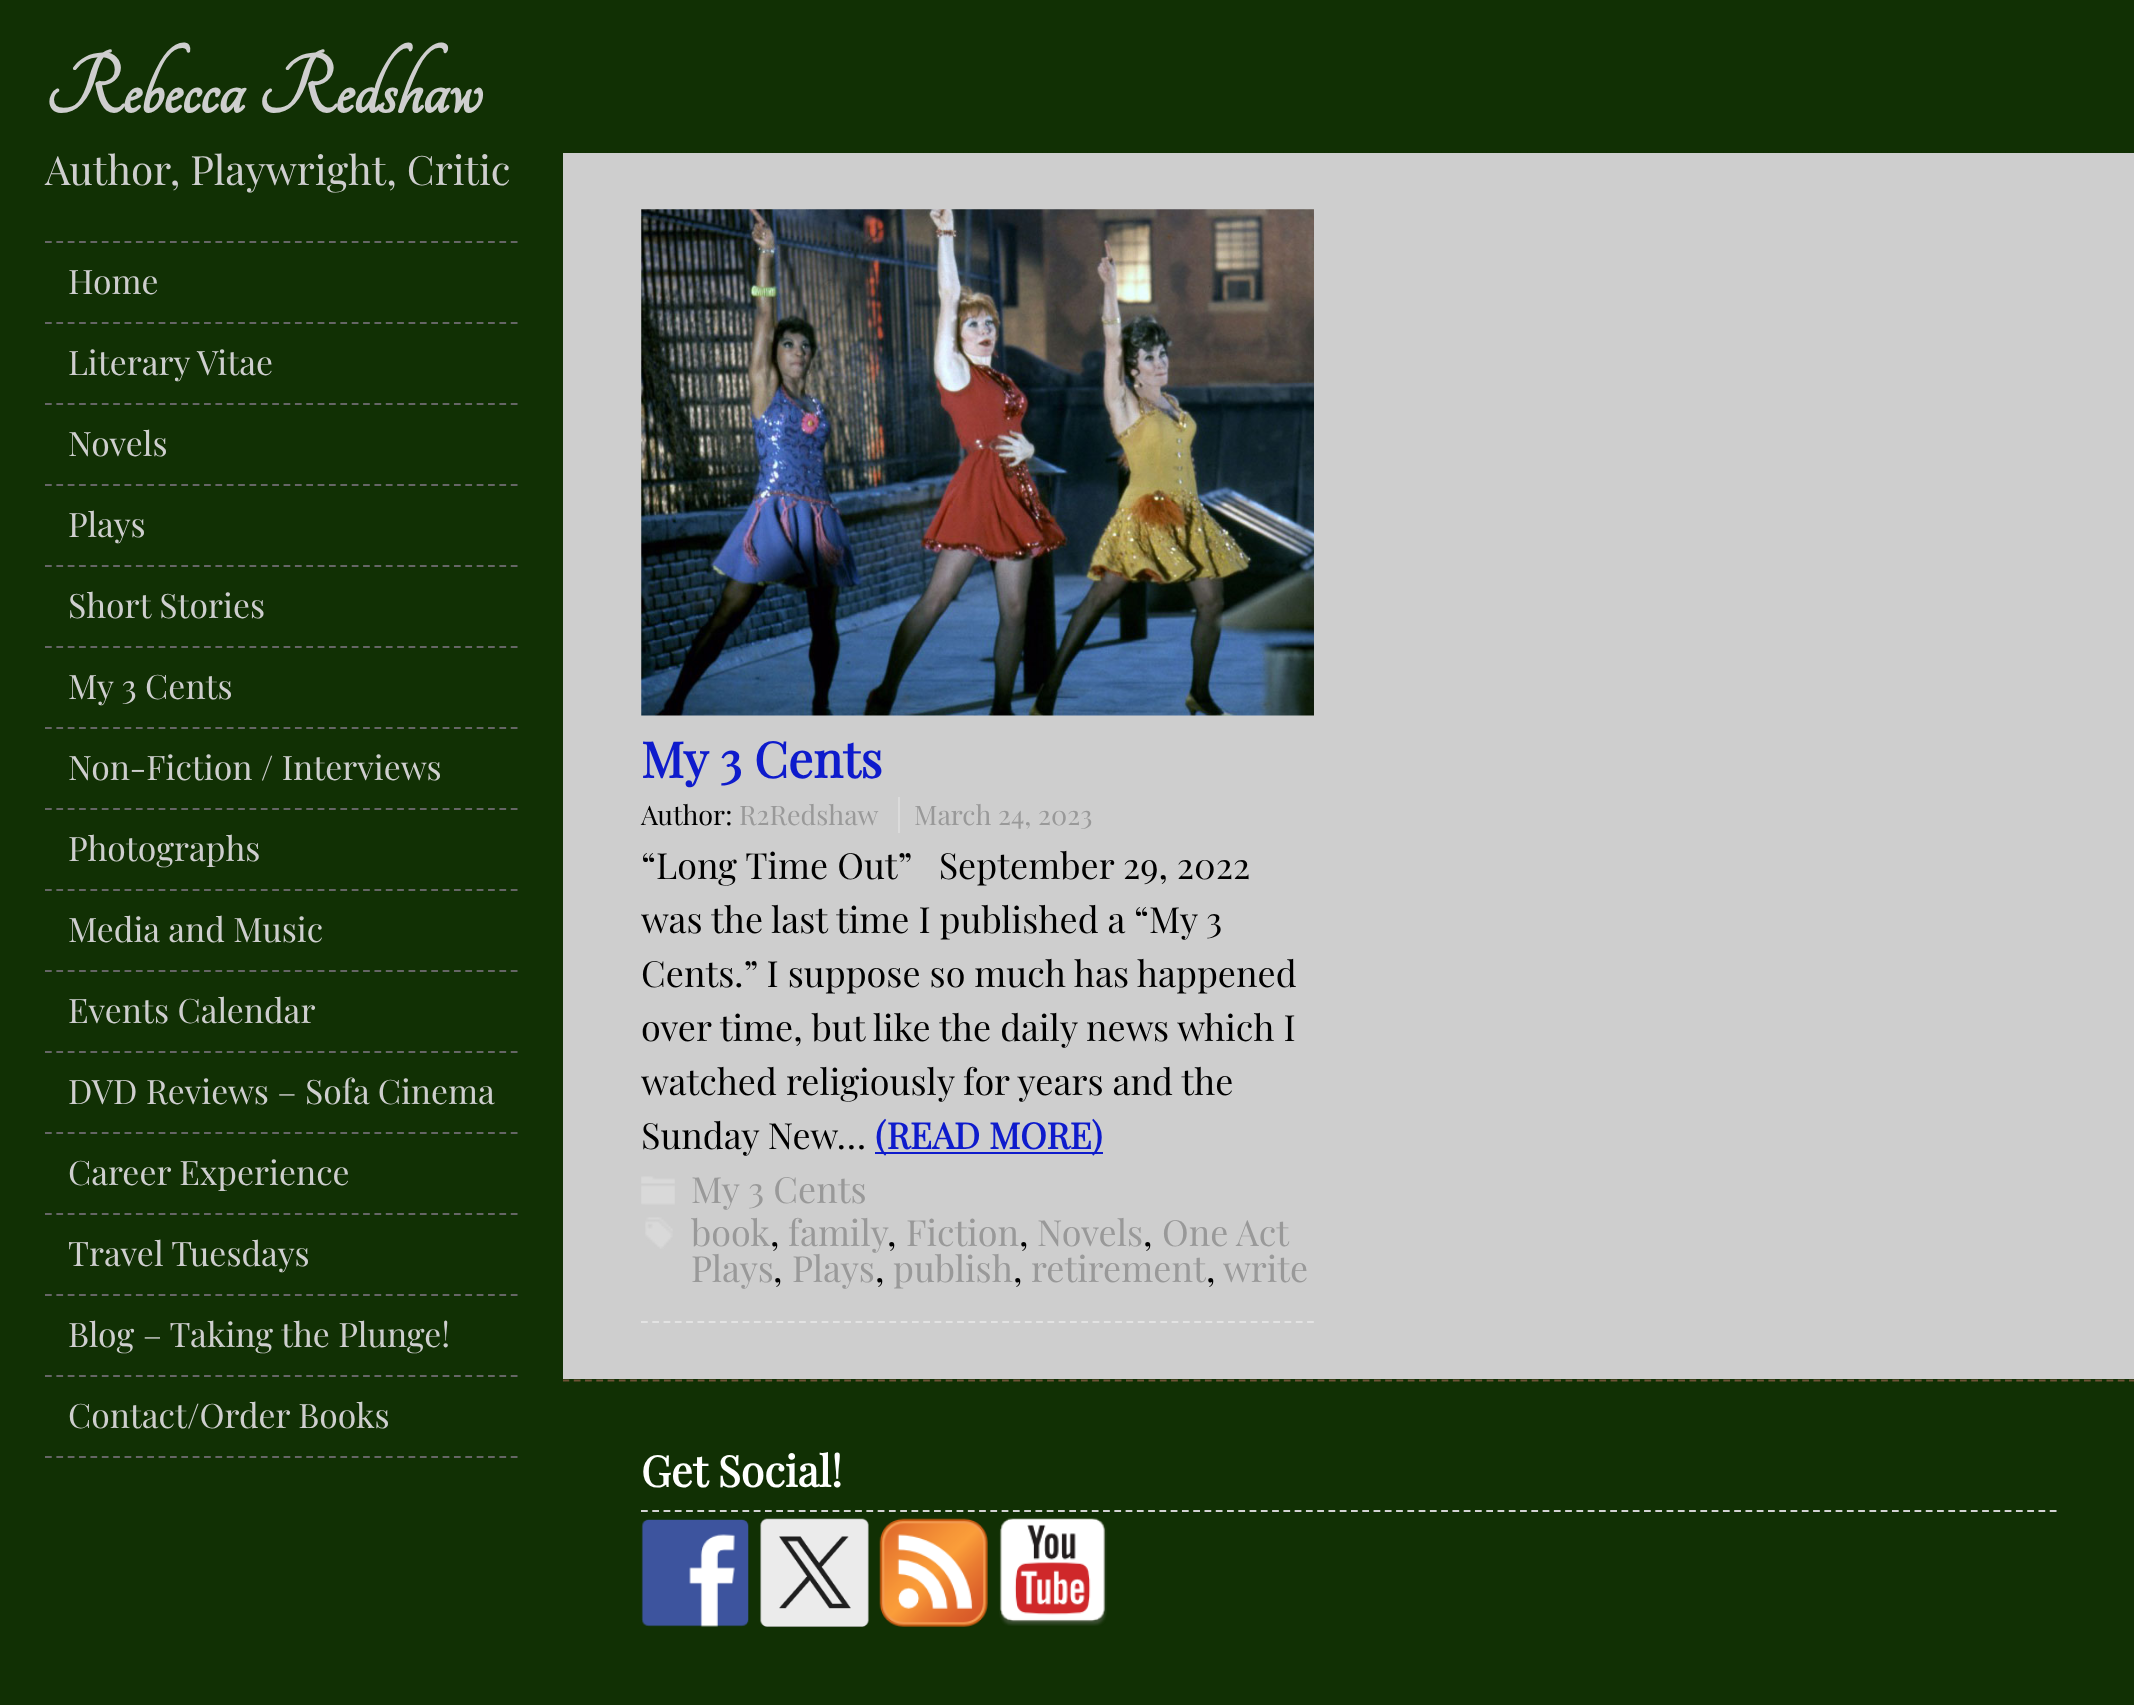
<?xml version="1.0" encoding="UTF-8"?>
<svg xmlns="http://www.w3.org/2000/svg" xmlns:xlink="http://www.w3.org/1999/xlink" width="2134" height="1705">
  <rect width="100%" height="100%" fill="#cecece" />
  <rect x="563" width="1571" height="153" fill="#113004" />
  <path d="M 562.5 152 h 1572.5" fill="none" stroke="#113004" stroke-width="2.2" stroke-dasharray="6.75 4.52" />
  <rect x="563" y="1379" width="1571" height="326" fill="#113004" />
  <path d="M 562.5 1380.5 h 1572.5" fill="none" stroke="#6f5236" stroke-width="2.2" stroke-dasharray="6.75 4.52" />
  <rect width="563" height="1705" fill="#113004" />
  <path d="M 45 242 h 472.5" fill="none" stroke="#666666" stroke-width="2.2" stroke-dasharray="6.75 4.61" />
  <path d="M 45 323 h 472.5" fill="none" stroke="#666666" stroke-width="2.2" stroke-dasharray="6.75 4.61" />
  <path d="M 45 404 h 472.5" fill="none" stroke="#666666" stroke-width="2.2" stroke-dasharray="6.75 4.61" />
  <path d="M 45 485 h 472.5" fill="none" stroke="#666666" stroke-width="2.2" stroke-dasharray="6.75 4.61" />
  <path d="M 45 566 h 472.5" fill="none" stroke="#666666" stroke-width="2.2" stroke-dasharray="6.75 4.61" />
  <path d="M 45 647 h 472.5" fill="none" stroke="#666666" stroke-width="2.2" stroke-dasharray="6.75 4.61" />
  <path d="M 45 728 h 472.5" fill="none" stroke="#666666" stroke-width="2.2" stroke-dasharray="6.75 4.61" />
  <path d="M 45 809 h 472.5" fill="none" stroke="#666666" stroke-width="2.2" stroke-dasharray="6.75 4.61" />
  <path d="M 45 890 h 472.5" fill="none" stroke="#666666" stroke-width="2.2" stroke-dasharray="6.75 4.61" />
  <path d="M 45 971 h 472.5" fill="none" stroke="#666666" stroke-width="2.2" stroke-dasharray="6.75 4.61" />
  <path d="M 45 1052 h 472.5" fill="none" stroke="#666666" stroke-width="2.2" stroke-dasharray="6.75 4.61" />
  <path d="M 45 1133 h 472.5" fill="none" stroke="#666666" stroke-width="2.2" stroke-dasharray="6.75 4.61" />
  <path d="M 45 1214 h 472.5" fill="none" stroke="#666666" stroke-width="2.2" stroke-dasharray="6.75 4.61" />
  <path d="M 45 1295 h 472.5" fill="none" stroke="#666666" stroke-width="2.2" stroke-dasharray="6.75 4.61" />
  <path d="M 45 1376 h 472.5" fill="none" stroke="#666666" stroke-width="2.2" stroke-dasharray="6.75 4.61" />
  <path d="M 45 1457 h 472.5" fill="none" stroke="#666666" stroke-width="2.2" stroke-dasharray="6.75 4.61" />
  <path d="M 641 1322 h 673" fill="none" stroke="#e3e3e3" stroke-width="2.2" stroke-dasharray="6.75 4.54" />
  <image x="641" y="209" width="673" height="507" xlink:href="image1.png" />
  <rect x="898" y="797" width="2" height="36" fill="#dbdbdb" />
  <rect x="875" y="1152" width="228" height="2" fill="#0e1bcc" />
  <image x="641" y="1176" width="34" height="29" xlink:href="image2.png" />
  <image x="645" y="1217" width="28" height="32" xlink:href="image3.png" />
  <path d="M 641 1511 h 1415.5" fill="none" stroke="#d4d4d4" stroke-width="2.2" stroke-dasharray="6.75 4.52" />
  <image x="641" y="1519" width="108" height="108" xlink:href="image4.png" />
  <image x="760" y="1518" width="109" height="109" xlink:href="image5.png" />
  <image x="879" y="1518" width="109" height="109" xlink:href="image6.png" />
  <image x="999" y="1518" width="108" height="108" xlink:href="image7.png" />
  <text x="45" y="113" style="font-family: Tangerine; font-size: 90px; font-weight: bold; fill: #cecece">Rebecca Redshaw</text>
  <text x="45" y="185" style="font-family: Playfair Display; font-size: 40.5px; fill: #cecece">Author, Playwright, Critic</text>
  <text x="68" y="294" style="font-family: Playfair Display; font-size: 33.75px; fill: #cecece">Home</text>
  <text x="68" y="375" style="font-family: Playfair Display; font-size: 33.75px; fill: #cecece">Literary Vitae</text>
  <text x="68" y="456" style="font-family: Playfair Display; font-size: 33.75px; fill: #cecece">Novels</text>
  <text x="68" y="537" style="font-family: Playfair Display; font-size: 33.75px; fill: #cecece">Plays</text>
  <text x="68" y="618" style="font-family: Playfair Display; font-size: 33.75px; fill: #cecece">Short Stories</text>
  <text x="68" y="699" style="font-family: Playfair Display; font-size: 33.75px; fill: #cecece">My 3 Cents</text>
  <text x="68" y="780" style="font-family: Playfair Display; font-size: 33.75px; fill: #cecece">Non-Fiction / Interviews</text>
  <text x="68" y="861" style="font-family: Playfair Display; font-size: 33.75px; fill: #cecece">Photographs</text>
  <text x="68" y="942" style="font-family: Playfair Display; font-size: 33.75px; fill: #cecece">Media and Music</text>
  <text x="68" y="1023" style="font-family: Playfair Display; font-size: 33.75px; fill: #cecece">Events Calendar</text>
  <text x="68" y="1104" style="font-family: Playfair Display; font-size: 33.75px; fill: #cecece">DVD Reviews – Sofa Cinema</text>
  <text x="68" y="1185" style="font-family: Playfair Display; font-size: 33.75px; fill: #cecece">Career Experience</text>
  <text x="68" y="1266" style="font-family: Playfair Display; font-size: 33.75px; fill: #cecece">Travel Tuesdays</text>
  <text x="68" y="1347" style="font-family: Playfair Display; font-size: 33.75px; fill: #cecece">Blog – Taking the Plunge!</text>
  <text x="68" y="1428" style="font-family: Playfair Display; font-size: 33.75px; fill: #cecece">Contact/Order Books</text>
  <text x="641" y="778" style="font-family: Playfair Display; font-size: 49.5px; font-weight: bold; fill: #0e1bcc">My 3 Cents</text>
  <text x="641" y="825" style="font-family: Playfair Display; font-size: 27px; fill: #000000">Author:</text>
  <text x="739" y="825" style="font-family: Playfair Display; font-size: 27px; fill: #999999">R2Redshaw</text>
  <text x="914" y="825" style="font-family: Playfair Display; font-size: 27px; fill: #999999">March 24, 2023</text>
  <text x="641" y="879" style="font-family: Playfair Display; font-size: 36px; fill: #000000" xml:space="preserve">“Long Time Out”   September 29, 2022</text>
  <text x="641" y="933" style="font-family: Playfair Display; font-size: 36px; fill: #000000">was the last time I published a “My 3</text>
  <text x="641" y="987" style="font-family: Playfair Display; font-size: 36px; fill: #000000">Cents.” I suppose so much has happened</text>
  <text x="641" y="1041" style="font-family: Playfair Display; font-size: 36px; fill: #000000">over time, but like the daily news which I</text>
  <text x="641" y="1095" style="font-family: Playfair Display; font-size: 36px; fill: #000000">watched religiously for years and the</text>
  <text x="641" y="1149" style="font-family: Playfair Display; font-size: 36px; fill: #000000">Sunday New…</text>
  <text x="875" y="1149" style="font-family: Playfair Display; font-size: 36px; font-weight: bold; fill: #0e1bcc">(READ MORE)</text>
  <text x="691" y="1203" style="font-family: Playfair Display; font-size: 36px; fill: #999999">My 3 Cents</text>
  <text x="691" y="1246" style="font-family: Playfair Display; font-size: 36px; fill: #999999">book</text>
  <text x="770" y="1246" style="font-family: Playfair Display; font-size: 36px; fill: #000000">,</text>
  <text x="788" y="1246" style="font-family: Playfair Display; font-size: 36px; fill: #999999">family</text>
  <text x="887" y="1246" style="font-family: Playfair Display; font-size: 36px; fill: #000000">,</text>
  <text x="906" y="1246" style="font-family: Playfair Display; font-size: 36px; fill: #999999">Fiction</text>
  <text x="1019" y="1246" style="font-family: Playfair Display; font-size: 36px; fill: #000000">,</text>
  <text x="1037" y="1246" style="font-family: Playfair Display; font-size: 36px; fill: #999999">Novels</text>
  <text x="1143" y="1246" style="font-family: Playfair Display; font-size: 36px; fill: #000000">,</text>
  <text x="1162" y="1246" style="font-family: Playfair Display; font-size: 36px; fill: #999999">One Act</text>
  <text x="691" y="1282" style="font-family: Playfair Display; font-size: 36px; fill: #999999">Plays</text>
  <text x="773" y="1282" style="font-family: Playfair Display; font-size: 36px; fill: #000000">,</text>
  <text x="792" y="1282" style="font-family: Playfair Display; font-size: 36px; fill: #999999">Plays</text>
  <text x="875" y="1282" style="font-family: Playfair Display; font-size: 36px; fill: #000000">,</text>
  <text x="893" y="1282" style="font-family: Playfair Display; font-size: 36px; fill: #999999">publish</text>
  <text x="1013" y="1282" style="font-family: Playfair Display; font-size: 36px; fill: #000000">,</text>
  <text x="1031" y="1282" style="font-family: Playfair Display; font-size: 36px; fill: #999999">retirement</text>
  <text x="1206" y="1282" style="font-family: Playfair Display; font-size: 36px; fill: #000000">,</text>
  <text x="1223" y="1282" style="font-family: Playfair Display; font-size: 36px; fill: #999999">write</text>
  <text x="641" y="1487" style="font-family: Playfair Display; font-size: 42.75px; font-weight: bold; fill: #ffffff">Get Social!</text>
</svg>
